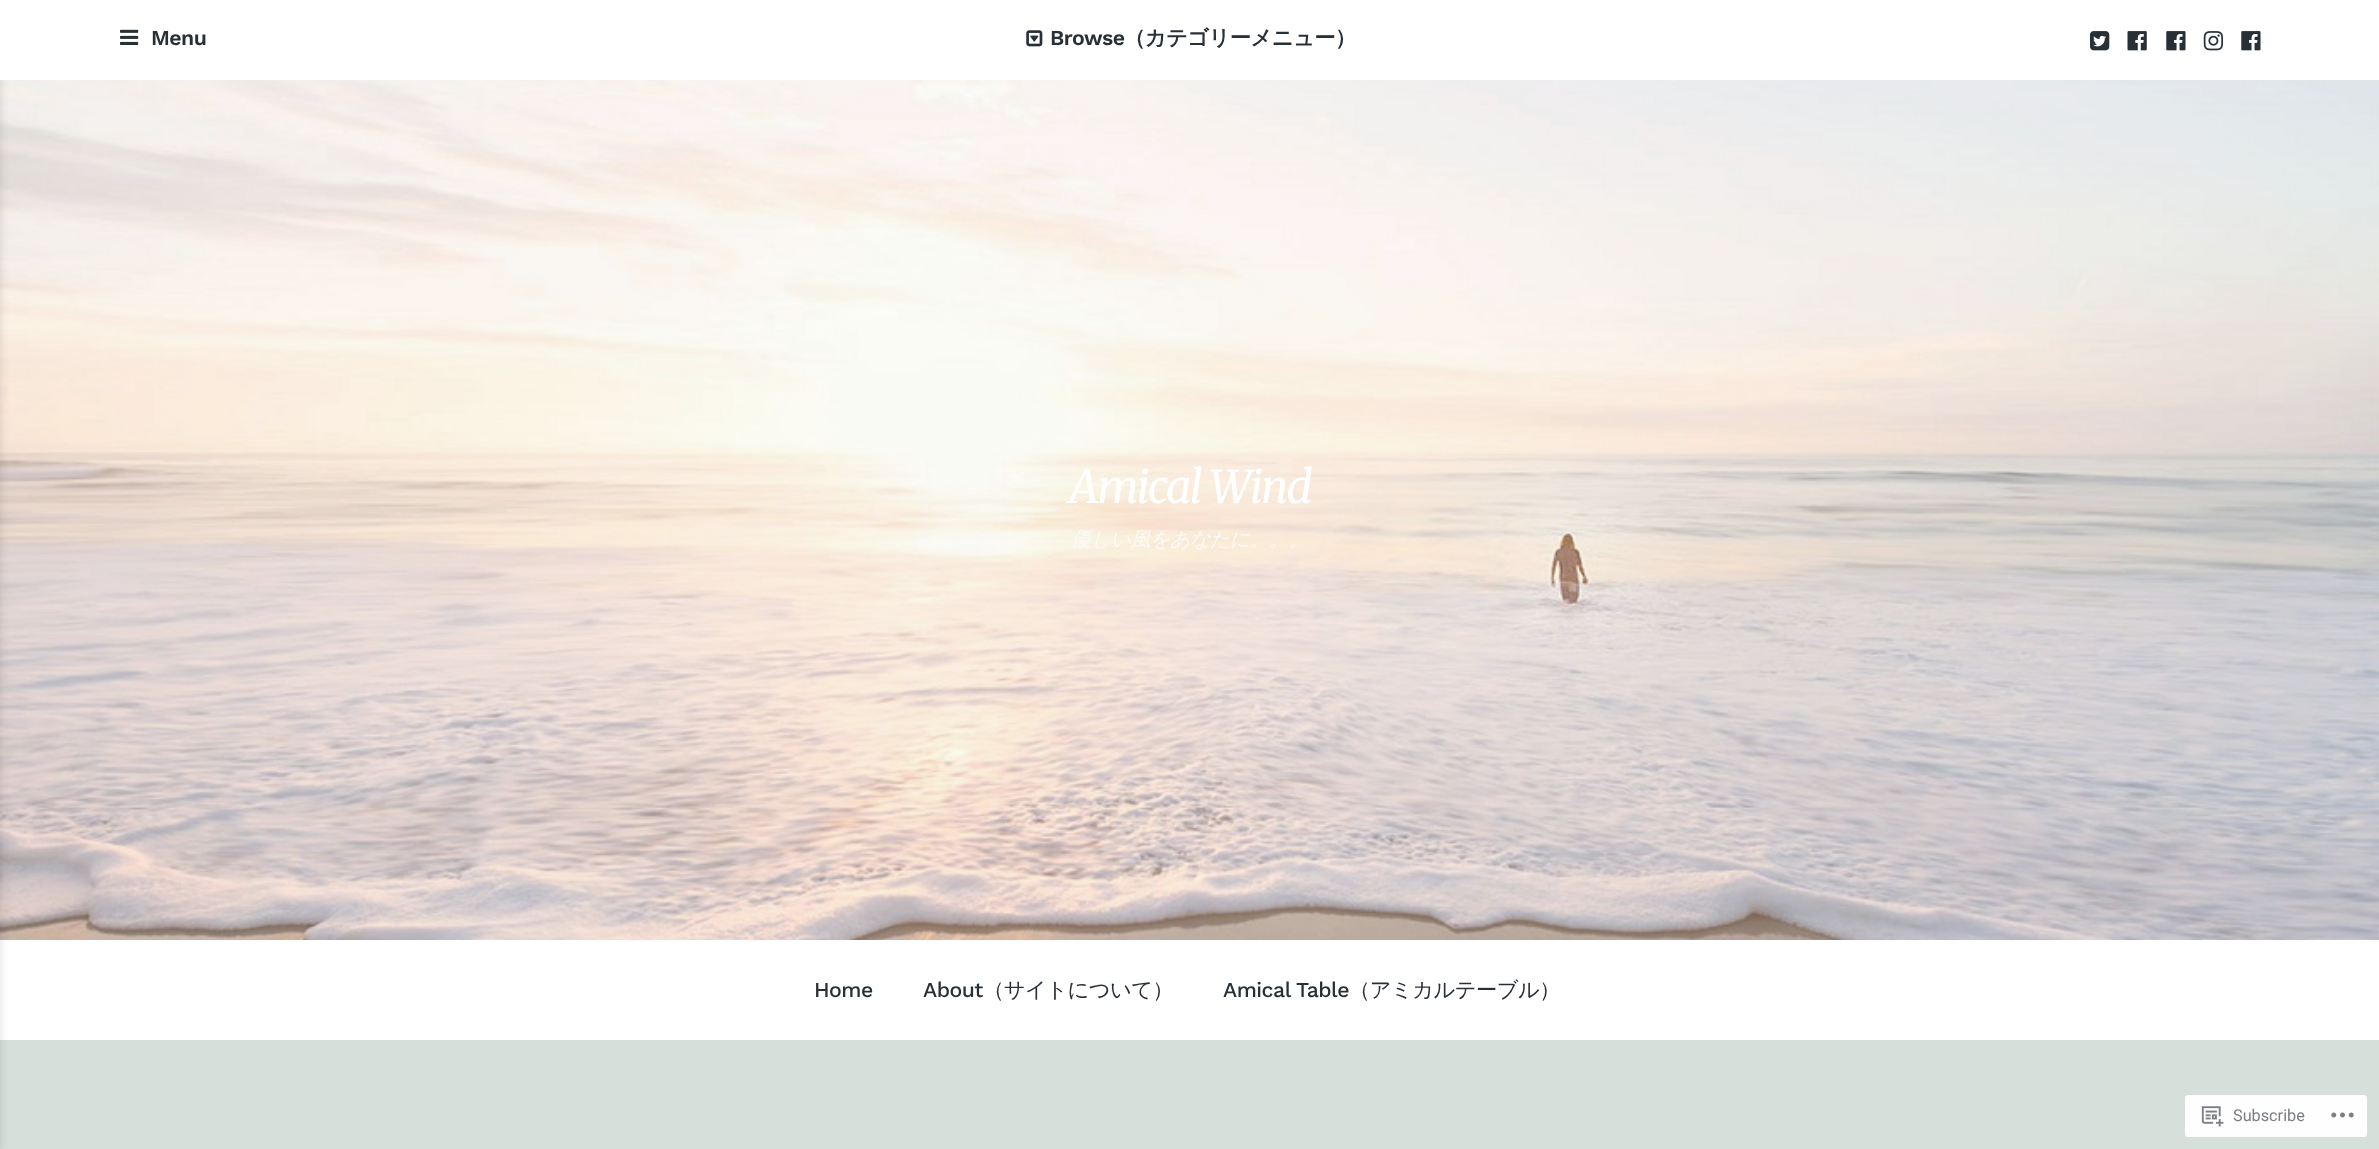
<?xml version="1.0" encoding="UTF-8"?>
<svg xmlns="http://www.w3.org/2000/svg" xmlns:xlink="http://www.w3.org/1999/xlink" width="2379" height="1149">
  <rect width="100%" height="100%" fill="#d5e0da" />
  <rect x="1" y="940" width="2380" height="100" fill="#000000" fill-opacity="0.25" filter="blur(0.5px)" />
  <image x="0" y="80" width="2379" height="860" xlink:href="image7.png" />
  <rect y="940" width="2379" height="100" fill="#ffffff" />
  <rect x="-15" width="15" height="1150" fill="#000000" fill-opacity="0.13" filter="blur(5px)" />
  <rect x="1" width="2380" height="80" fill="#000000" fill-opacity="0.25" filter="blur(0.5px)" />
  <rect width="2379" height="80" fill="#ffffff" />
  <image x="120" y="29" width="19" height="16" xlink:href="image1.png" />
  <image x="1026" y="30" width="17" height="17" xlink:href="image2.png" />
  <image x="2090" y="31" width="20" height="20" xlink:href="image3.png" />
  <image x="2127" y="31" width="20" height="20" xlink:href="image4.png" />
  <image x="2166" y="31" width="20" height="20" xlink:href="image5.png" />
  <image x="2203" y="31" width="21" height="20" xlink:href="image6.png" />
  <image x="2241" y="31" width="20" height="20" xlink:href="image5.png" />
  <rect x="2184.5" y="1094.5" width="183" height="43" rx="3.5" fill="#fefefe" stroke="#dcdcde" />
  <image x="2201" y="1106" width="23" height="21" xlink:href="image8.png" />
  <image x="2331" y="1112" width="23" height="6" xlink:href="image9.png" />
  <text x="151" y="45" style="font-family: Work Sans; font-size: 21.25px; font-weight: 600; letter-spacing: -0.5px; fill: #283037">Menu</text>
  <text x="1050" y="45" style="font-family: Work Sans; font-size: 21.25px; font-weight: 600; letter-spacing: -0.5px; fill: #283037">Browse</text>
  <text x="1124" y="45" style="font-family: WenQuanYi Zen Hei; font-size: 21.25px; font-weight: bold; letter-spacing: -0.5px; fill: #283037">（カテゴリーメニュー）</text>
  <text x="1069" y="503" style="font-family: Merriweather; font-size: 45px; font-weight: 300; font-style: italic; letter-spacing: -1.75px; fill: #ffffff">Amical Wind</text>
  <text x="1071" y="546" style="font-family: WenQuanYi Zen Hei; font-size: 20px; font-weight: 500; font-style: italic; letter-spacing: -0.5px; fill: #fcfaf7">優しい風をあなたに。。。</text>
  <text x="814" y="997" style="font-family: Work Sans; font-size: 21.25px; font-weight: 500; letter-spacing: -0.5px; fill: #283037">Home</text>
  <text x="923" y="997" style="font-family: Work Sans; font-size: 21.25px; font-weight: 500; letter-spacing: -0.5px; fill: #283037">About</text>
  <text x="983" y="997" style="font-family: WenQuanYi Zen Hei; font-size: 21.25px; font-weight: 500; letter-spacing: -0.5px; fill: #283037">（サイトについて）</text>
  <text x="1223" y="997" style="font-family: Work Sans; font-size: 21.25px; font-weight: 500; letter-spacing: -0.5px; fill: #283037">Amical Table</text>
  <text x="1349" y="997" style="font-family: WenQuanYi Zen Hei; font-size: 21.25px; font-weight: 500; letter-spacing: -0.5px; fill: #283037">（アミカルテーブル）</text>
  <text x="2233" y="1121" style="font-family: Roboto; font-size: 16.25px; fill: #7a7e84">Subscribe</text>
</svg>
